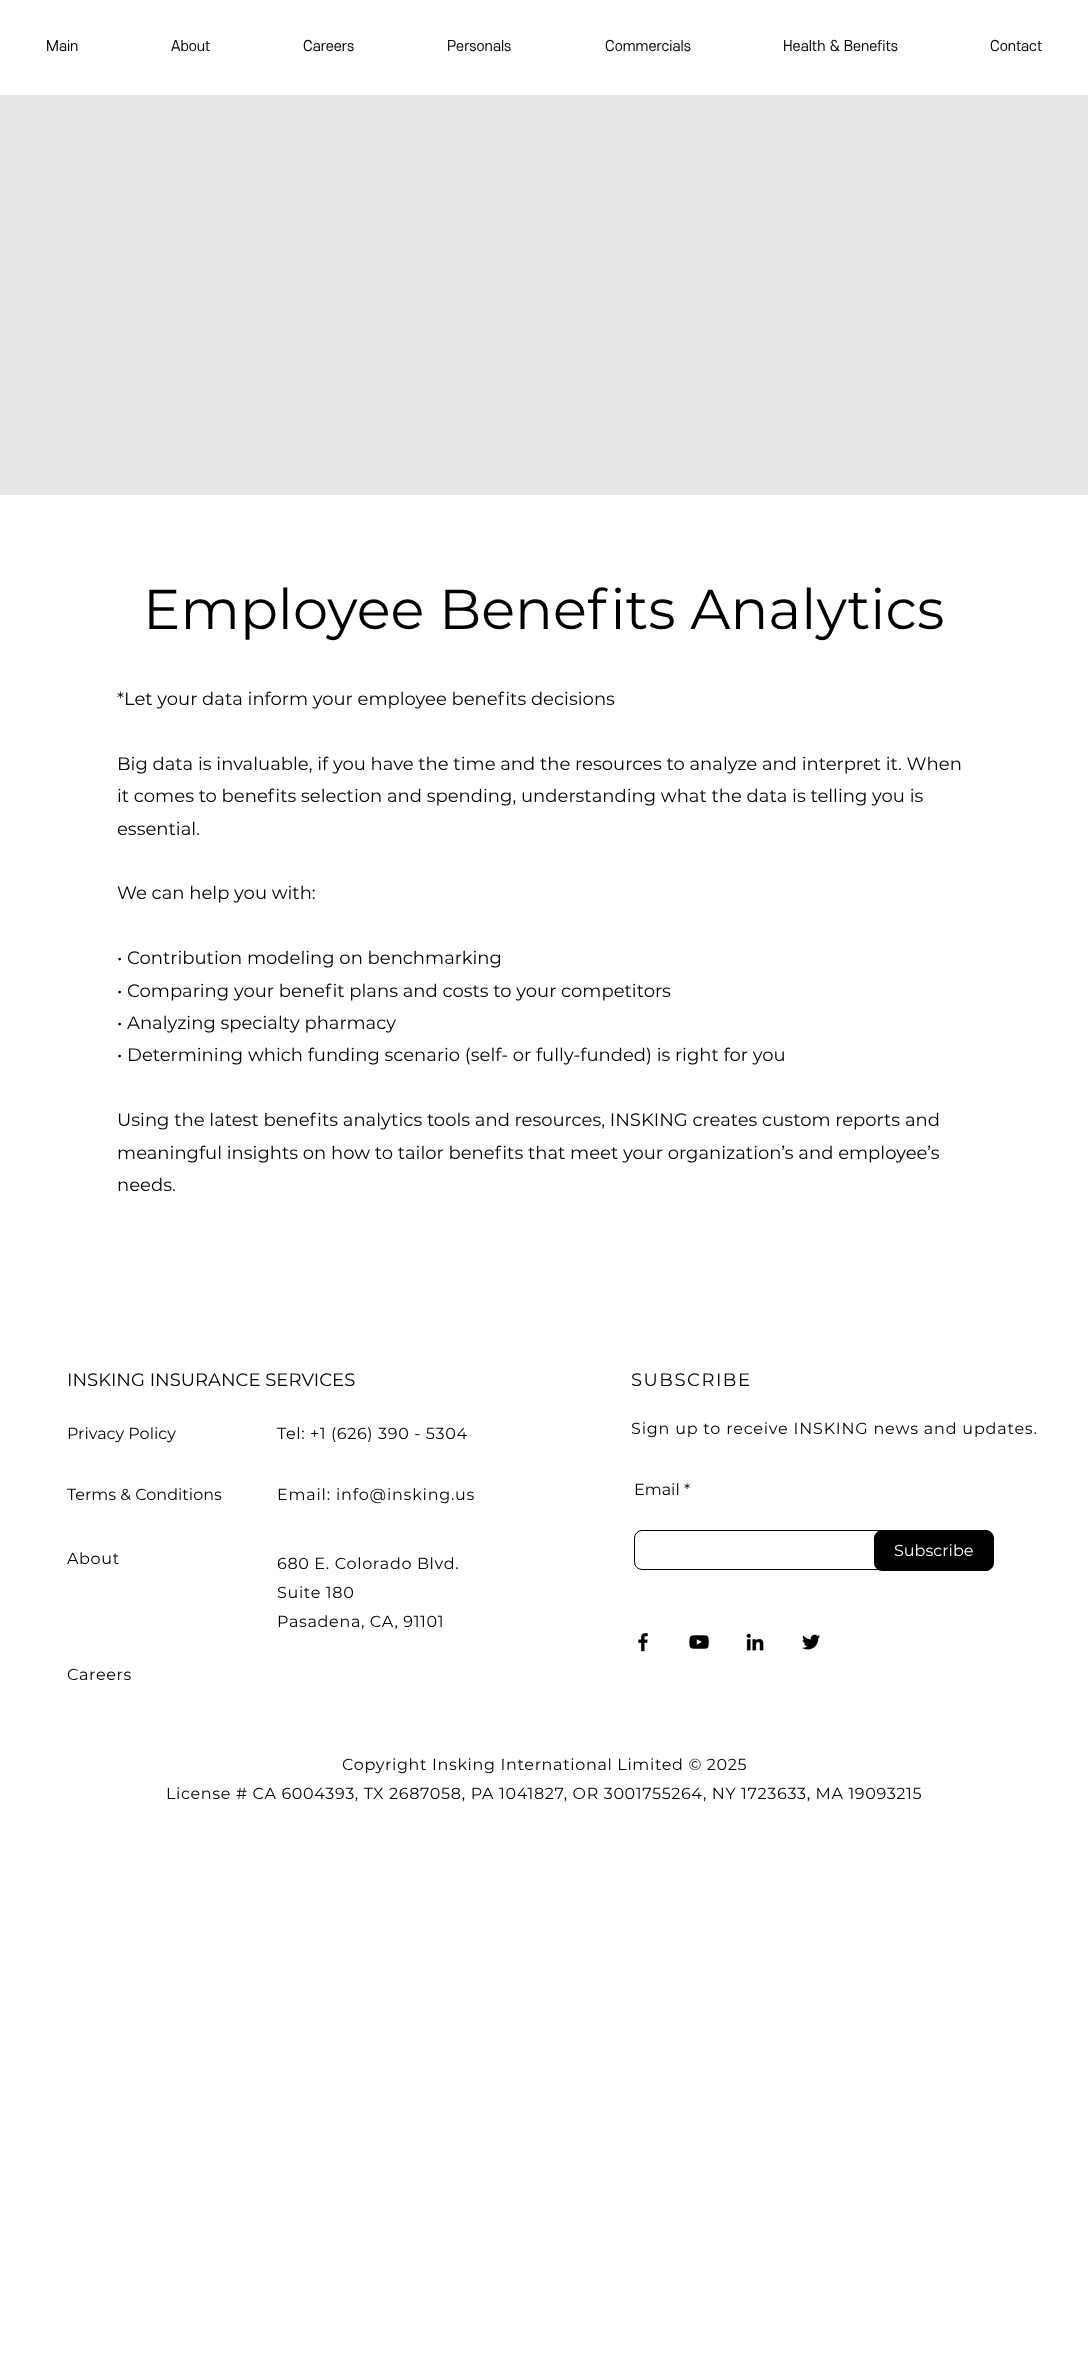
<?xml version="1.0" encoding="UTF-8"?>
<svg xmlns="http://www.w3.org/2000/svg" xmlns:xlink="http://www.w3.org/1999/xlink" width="1088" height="2362">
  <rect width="100%" height="100%" fill="#ffffff" />
  <rect y="95" width="1088" height="400" fill="#e8e6e6" />
  <rect x="634.5" y="1530.5" width="270" height="39" rx="7.5" fill="none" stroke="#000000" />
  <rect x="874.5" y="1530.5" width="119" height="40" rx="7.5" fill="#000000" stroke="#000000" />
  <image x="638" y="1632" width="10" height="20" xlink:href="image1.png" />
  <image x="689" y="1635" width="20" height="14" xlink:href="image2.png" />
  <image x="746" y="1633" width="18" height="18" xlink:href="image3.png" />
  <image x="802" y="1634" width="18" height="16" xlink:href="image4.png" />
  <text x="46" y="51" style="font-family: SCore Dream; font-size: 14px; fill: #000000">Main</text>
  <text x="171" y="51" style="font-family: SCore Dream; font-size: 14px; fill: #000000">About</text>
  <text x="303" y="51" style="font-family: SCore Dream; font-size: 14px; fill: #000000">Careers</text>
  <text x="447" y="51" style="font-family: SCore Dream; font-size: 14px; fill: #000000">Personals</text>
  <text x="605" y="51" style="font-family: SCore Dream; font-size: 14px; fill: #000000">Commercials</text>
  <text x="783" y="51" style="font-family: SCore Dream; font-size: 14px; fill: #000000">Health &amp; Benefits</text>
  <text x="990" y="51" style="font-family: SCore Dream; font-size: 14px; fill: #000000">Contact</text>
  <text x="143" y="629" style="font-family: Montserrat; font-size: 56px; fill: #000000">Employee Benefits Analytics</text>
  <text x="117" y="705" style="font-family: Montserrat; font-size: 18px; fill: #000000">*Let your data inform your employee benefits decisions</text>
  <text x="117" y="770" style="font-family: Montserrat; font-size: 18px; fill: #000000">Big data is invaluable, if you have the time and the resources to analyze and interpret it. When</text>
  <text x="117" y="802" style="font-family: Montserrat; font-size: 18px; fill: #000000">it comes to benefits selection and spending, understanding what the data is telling you is</text>
  <text x="117" y="835" style="font-family: Montserrat; font-size: 18px; fill: #000000">essential.</text>
  <text x="117" y="899" style="font-family: Montserrat; font-size: 18px; fill: #000000">We can help you with:</text>
  <text x="117" y="964" style="font-family: Montserrat; font-size: 18px; fill: #000000">• Contribution modeling on benchmarking</text>
  <text x="117" y="997" style="font-family: Montserrat; font-size: 18px; fill: #000000">• Comparing your benefit plans and costs to your competitors</text>
  <text x="117" y="1029" style="font-family: Montserrat; font-size: 18px; fill: #000000">• Analyzing specialty pharmacy</text>
  <text x="117" y="1061" style="font-family: Montserrat; font-size: 18px; fill: #000000">• Determining which funding scenario (self- or fully-funded) is right for you</text>
  <text x="117" y="1126" style="font-family: Montserrat; font-size: 18px; fill: #000000">Using the latest benefits analytics tools and resources, INSKING creates custom reports and</text>
  <text x="117" y="1159" style="font-family: Montserrat; font-size: 18px; fill: #000000">meaningful insights on how to tailor benefits that meet your organization’s and employee’s</text>
  <text x="117" y="1191" style="font-family: Montserrat; font-size: 18px; fill: #000000">needs.</text>
  <text x="67" y="1386" style="font-family: Montserrat; font-size: 18px; fill: #000000">INSKING INSURANCE SERVICES</text>
  <text x="67" y="1439" style="font-family: Montserrat; font-size: 16px; fill: #000000">Privacy Policy</text>
  <text x="277" y="1439" style="font-family: Montserrat; font-size: 16px; letter-spacing: 0.65px; fill: #000000">Tel: +1 (626) 390 - 5304</text>
  <text x="67" y="1500" style="font-family: Montserrat; font-size: 16px; fill: #000000">Terms &amp; Conditions</text>
  <text x="277" y="1500" style="font-family: Montserrat; font-size: 16px; letter-spacing: 0.8px; fill: #000000">Email: info@insking.us</text>
  <text x="67" y="1564" style="font-family: Montserrat; font-size: 16px; letter-spacing: 0.65px; fill: #000000">About</text>
  <text x="277" y="1569" style="font-family: Montserrat; font-size: 16px; letter-spacing: 0.65px; fill: #000000">680 E. Colorado Blvd.</text>
  <text x="277" y="1598" style="font-family: Montserrat; font-size: 16px; letter-spacing: 0.65px; fill: #000000">Suite 180</text>
  <text x="277" y="1627" style="font-family: Montserrat; font-size: 16px; letter-spacing: 0.65px; fill: #000000">Pasadena, CA, 91101</text>
  <text x="67" y="1680" style="font-family: Montserrat; font-size: 16px; letter-spacing: 0.65px; fill: #000000">Careers</text>
  <text x="631" y="1386" style="font-family: Montserrat; font-size: 18px; letter-spacing: 1.5px; fill: #000000">SUBSCRIBE</text>
  <text x="631" y="1434" style="font-family: Montserrat; font-size: 16px; letter-spacing: 0.8px; fill: #000000">Sign up to receive INSKING news and updates.</text>
  <text x="634" y="1495" style="font-family: Montserrat; font-size: 16px; fill: #000000">Email *</text>
  <text x="894" y="1556" style="font-family: Montserrat; font-size: 16px; fill: #ffffff">Subscribe</text>
  <text x="342" y="1770" style="font-family: Montserrat; font-size: 16px; letter-spacing: 0.65px; fill: #000000">Copyright Insking International Limited © 2025</text>
  <text x="166" y="1799" style="font-family: Montserrat; font-size: 16px; letter-spacing: 0.65px; fill: #000000">License # CA 6004393, TX 2687058, PA 1041827, OR 3001755264, NY 1723633, MA 19093215</text>
</svg>
